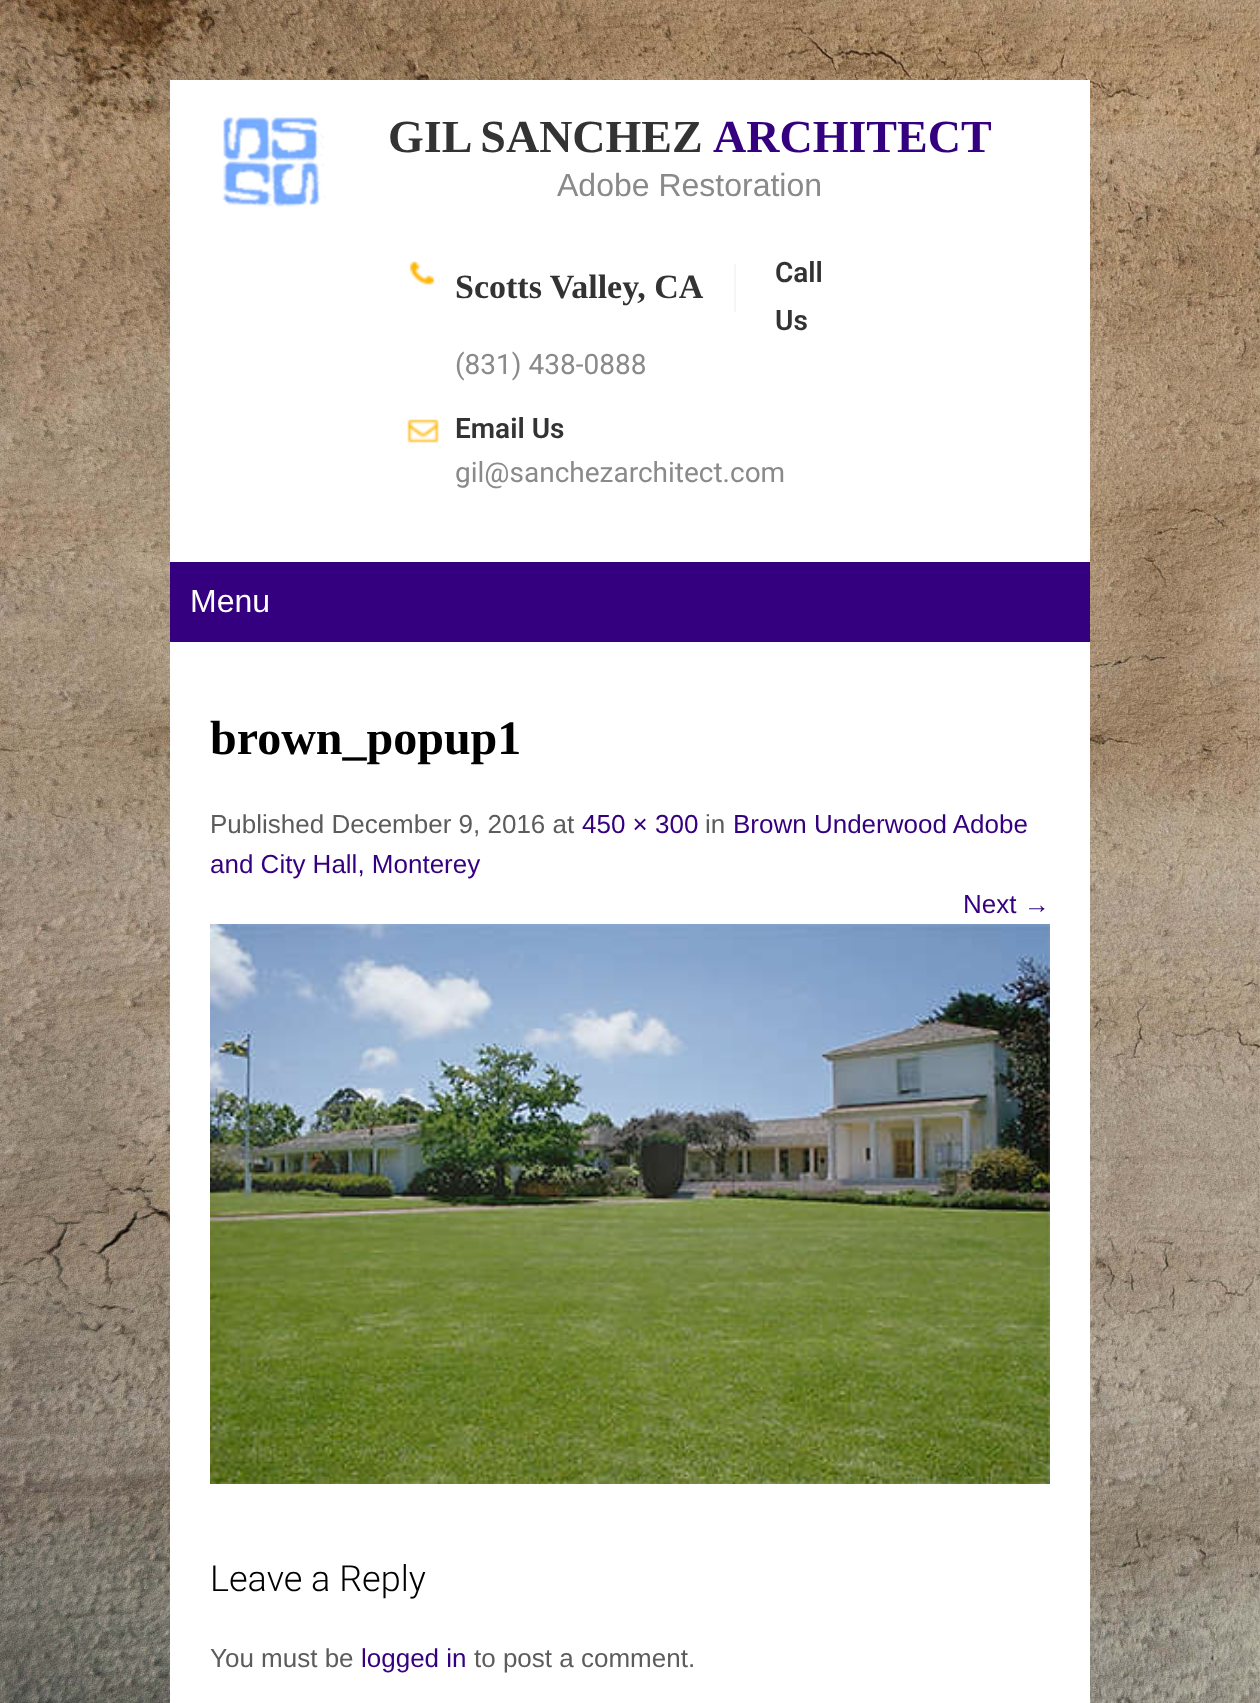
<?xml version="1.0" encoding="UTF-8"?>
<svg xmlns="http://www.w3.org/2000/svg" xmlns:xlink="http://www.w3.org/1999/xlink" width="1260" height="1703">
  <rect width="100%" height="100%" fill="#ffffff" />
  <image x="0" y="0" width="1260" height="1703" xlink:href="image1.png" />
  <rect x="170" y="80" width="920" height="1623" fill="#ffffff" />
  <image x="222" y="117" width="104" height="90" xlink:href="image2.png" />
  <image x="409" y="261" width="26" height="24" xlink:href="image3.png" />
  <rect x="734" y="264" width="2" height="48" fill="#f5f5f5" />
  <image x="407" y="419" width="32" height="24" xlink:href="image4.png" />
  <rect x="170" y="562" width="920" height="80" fill="#35007f" />
  <image x="210" y="924" width="840" height="560" xlink:href="image5.png" />
  <text x="388" y="152" word-spacing="-1" style="font-family: Liberation Serif; font-size: 46px; font-weight: bold; fill: #333333">GIL SANCHEZ</text>
  <text x="713" y="152" style="font-family: Liberation Serif; font-size: 46px; font-weight: bold; fill: #35007f">ARCHITECT</text>
  <text x="557" y="196" style="font-family: Liberation Sans; font-size: 32px; fill: #8a8a8a">Adobe Restoration</text>
  <text x="775" y="282" style="font-family: Roboto; font-size: 28px; font-weight: 600; fill: #333333">Call</text>
  <text x="775" y="330" style="font-family: Roboto; font-size: 28px; font-weight: 600; fill: #333333">Us</text>
  <text x="455" y="374" style="font-family: Roboto; font-size: 28px; fill: #8a8a8a">(831) 438-0888</text>
  <text x="455" y="298" style="font-family: Liberation Serif; font-size: 34px; font-weight: bold; fill: #333333">Scotts Valley, CA</text>
  <text x="455" y="438" style="font-family: Roboto; font-size: 28px; font-weight: 600; fill: #333333">Email Us</text>
  <text x="455" y="482" style="font-family: Roboto; font-size: 28px; fill: #8a8a8a">gil@sanchezarchitect.com</text>
  <text x="190" y="612" style="font-family: Liberation Sans; font-size: 32px; fill: #ffffff">Menu</text>
  <text x="210" y="754" style="font-family: Liberation Serif; font-size: 48px; font-weight: bold; fill: #000000">brown_popup1</text>
  <text x="210" y="833" style="font-family: Liberation Sans; font-size: 26px; fill: #5c5c5c">Published December 9, 2016 at</text>
  <text x="582" y="833" style="font-family: Liberation Sans; font-size: 26px; fill: #35007f">450 × 300</text>
  <text x="705" y="833" style="font-family: Liberation Sans; font-size: 26px; fill: #5c5c5c">in</text>
  <text x="733" y="833" style="font-family: Liberation Sans; font-size: 26px; fill: #35007f">Brown Underwood Adobe</text>
  <text x="210" y="873" style="font-family: Liberation Sans; font-size: 26px; fill: #35007f">and City Hall, Monterey</text>
  <text x="963" y="913" style="font-family: Liberation Sans; font-size: 26px; fill: #35007f">Next →</text>
  <text x="210" y="1591" style="font-family: Roboto; font-size: 36px; font-weight: 300; fill: #000000">Leave a Reply</text>
  <text x="210" y="1667" style="font-family: Liberation Sans; font-size: 26px; fill: #5c5c5c">You must be</text>
  <text x="361" y="1667" style="font-family: Liberation Sans; font-size: 26px; fill: #35007f">logged in</text>
  <text x="474" y="1667" style="font-family: Liberation Sans; font-size: 26px; fill: #5c5c5c">to post a comment.</text>
</svg>
